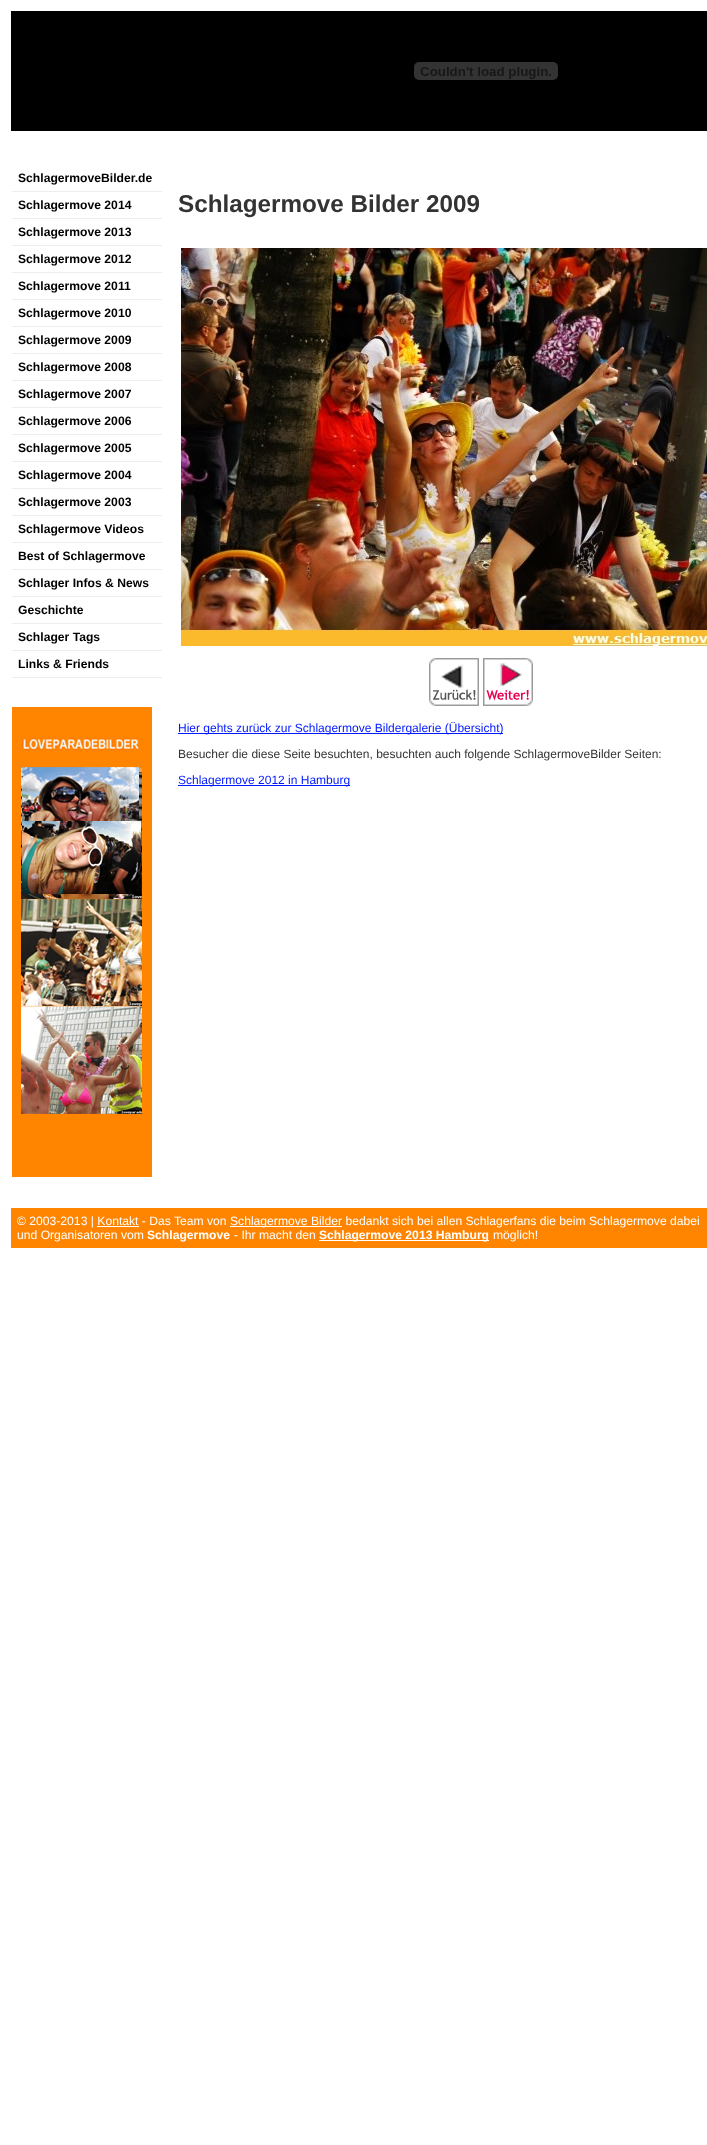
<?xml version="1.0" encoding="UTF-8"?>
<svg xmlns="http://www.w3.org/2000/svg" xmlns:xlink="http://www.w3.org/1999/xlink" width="707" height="2145">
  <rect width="100%" height="100%" fill="#ffffff" />
  <rect x="11" y="11" width="696" height="120" fill="#000000" />
  <image x="414" y="62" width="144" height="18" xlink:href="image1.png" />
  <rect x="12" y="191" width="150" height="1" fill="#eeeeee" />
  <rect x="12" y="218" width="150" height="1" fill="#eeeeee" />
  <rect x="12" y="245" width="150" height="1" fill="#eeeeee" />
  <rect x="12" y="272" width="150" height="1" fill="#eeeeee" />
  <rect x="12" y="299" width="150" height="1" fill="#eeeeee" />
  <rect x="12" y="326" width="150" height="1" fill="#eeeeee" />
  <rect x="12" y="353" width="150" height="1" fill="#eeeeee" />
  <rect x="12" y="380" width="150" height="1" fill="#eeeeee" />
  <rect x="12" y="407" width="150" height="1" fill="#eeeeee" />
  <rect x="12" y="434" width="150" height="1" fill="#eeeeee" />
  <rect x="12" y="461" width="150" height="1" fill="#eeeeee" />
  <rect x="12" y="488" width="150" height="1" fill="#eeeeee" />
  <rect x="12" y="515" width="150" height="1" fill="#eeeeee" />
  <rect x="12" y="542" width="150" height="1" fill="#eeeeee" />
  <rect x="12" y="569" width="150" height="1" fill="#eeeeee" />
  <rect x="12" y="596" width="150" height="1" fill="#eeeeee" />
  <rect x="12" y="623" width="150" height="1" fill="#eeeeee" />
  <rect x="12" y="650" width="150" height="1" fill="#eeeeee" />
  <rect x="12" y="677" width="150" height="1" fill="#eeeeee" />
  <image x="12" y="707" width="140" height="470" xlink:href="image2.png" />
  <image x="181" y="248" width="526" height="398" xlink:href="image3.png" />
  <image x="429" y="658" width="50" height="48" xlink:href="image4.png" />
  <image x="483" y="658" width="50" height="48" xlink:href="image5.png" />
  <rect x="178" y="733" width="325" height="1" fill="#0018ff" />
  <rect x="178" y="785" width="172" height="1" fill="#0018ff" />
  <rect x="11" y="1208" width="696" height="40" fill="#ff8400" />
  <rect x="230" y="1226" width="112" height="1" fill="#ffffff" />
  <rect x="97" y="1226" width="42" height="1" fill="#ffffff" />
  <rect x="319" y="1240" width="170" height="1" fill="#ffffff" />
  <text x="18" y="182" style="font-family: Liberation Sans; font-size: 12.15px; font-weight: bold; fill: #000000">SchlagermoveBilder.de</text>
  <text x="18" y="209" style="font-family: Liberation Sans; font-size: 12.15px; font-weight: bold; fill: #000000">Schlagermove 2014</text>
  <text x="18" y="236" style="font-family: Liberation Sans; font-size: 12.15px; font-weight: bold; fill: #000000">Schlagermove 2013</text>
  <text x="18" y="263" style="font-family: Liberation Sans; font-size: 12.15px; font-weight: bold; fill: #000000">Schlagermove 2012</text>
  <text x="18" y="290" style="font-family: Liberation Sans; font-size: 12.15px; font-weight: bold; fill: #000000">Schlagermove 2011</text>
  <text x="18" y="317" style="font-family: Liberation Sans; font-size: 12.15px; font-weight: bold; fill: #000000">Schlagermove 2010</text>
  <text x="18" y="344" style="font-family: Liberation Sans; font-size: 12.15px; font-weight: bold; fill: #000000">Schlagermove 2009</text>
  <text x="18" y="371" style="font-family: Liberation Sans; font-size: 12.15px; font-weight: bold; fill: #000000">Schlagermove 2008</text>
  <text x="18" y="398" style="font-family: Liberation Sans; font-size: 12.15px; font-weight: bold; fill: #000000">Schlagermove 2007</text>
  <text x="18" y="425" style="font-family: Liberation Sans; font-size: 12.15px; font-weight: bold; fill: #000000">Schlagermove 2006</text>
  <text x="18" y="452" style="font-family: Liberation Sans; font-size: 12.15px; font-weight: bold; fill: #000000">Schlagermove 2005</text>
  <text x="18" y="479" style="font-family: Liberation Sans; font-size: 12.15px; font-weight: bold; fill: #000000">Schlagermove 2004</text>
  <text x="18" y="506" style="font-family: Liberation Sans; font-size: 12.15px; font-weight: bold; fill: #000000">Schlagermove 2003</text>
  <text x="18" y="533" style="font-family: Liberation Sans; font-size: 12.15px; font-weight: bold; fill: #000000">Schlagermove Videos</text>
  <text x="18" y="560" style="font-family: Liberation Sans; font-size: 12.15px; font-weight: bold; fill: #000000">Best of Schlagermove</text>
  <text x="18" y="587" style="font-family: Liberation Sans; font-size: 12.15px; font-weight: bold; fill: #000000">Schlager Infos &amp; News</text>
  <text x="18" y="614" style="font-family: Liberation Sans; font-size: 12.15px; font-weight: bold; fill: #000000">Geschichte</text>
  <text x="18" y="641" style="font-family: Liberation Sans; font-size: 12.15px; font-weight: bold; fill: #000000">Schlager Tags</text>
  <text x="18" y="668" style="font-family: Liberation Sans; font-size: 12.15px; font-weight: bold; fill: #000000">Links &amp; Friends</text>
  <text x="178" y="212" style="font-family: Liberation Sans; font-size: 24.25px; font-weight: bold; fill: #333333">Schlagermove Bilder 2009</text>
  <text x="178" y="732" style="font-family: Liberation Sans; font-size: 12px; fill: #0018ff">Hier gehts zurück zur Schlagermove Bildergalerie (Übersicht)</text>
  <text x="178" y="758" style="font-family: Liberation Sans; font-size: 12px; fill: #333333">Besucher die diese Seite besuchten, besuchten auch folgende SchlagermoveBilder Seiten:</text>
  <text x="178" y="784" style="font-family: Liberation Sans; font-size: 12px; fill: #0018ff">Schlagermove 2012 in Hamburg</text>
  <text x="17" y="1225" style="font-family: Liberation Sans; font-size: 12.15px; fill: #ffffff">© 2003-2013 | Kontakt - Das Team von</text>
  <text x="230" y="1225" style="font-family: Liberation Sans; font-size: 12.15px; fill: #ffffff">Schlagermove Bilder bedankt sich bei allen Schlagerfans die beim Schlagermove dabei</text>
  <text x="17" y="1239" style="font-family: Liberation Sans; font-size: 12.15px; fill: #ffffff">und Organisatoren vom</text>
  <text x="147" y="1239" style="font-family: Liberation Sans; font-size: 12.15px; font-weight: bold; fill: #ffffff">Schlagermove</text>
  <text x="234" y="1239" style="font-family: Liberation Sans; font-size: 12.15px; fill: #ffffff">- Ihr macht den</text>
  <text x="319" y="1239" style="font-family: Liberation Sans; font-size: 12.15px; font-weight: bold; fill: #ffffff">Schlagermove 2013 Hamburg</text>
  <text x="493" y="1239" style="font-family: Liberation Sans; font-size: 12.15px; fill: #ffffff">möglich!</text>
</svg>
